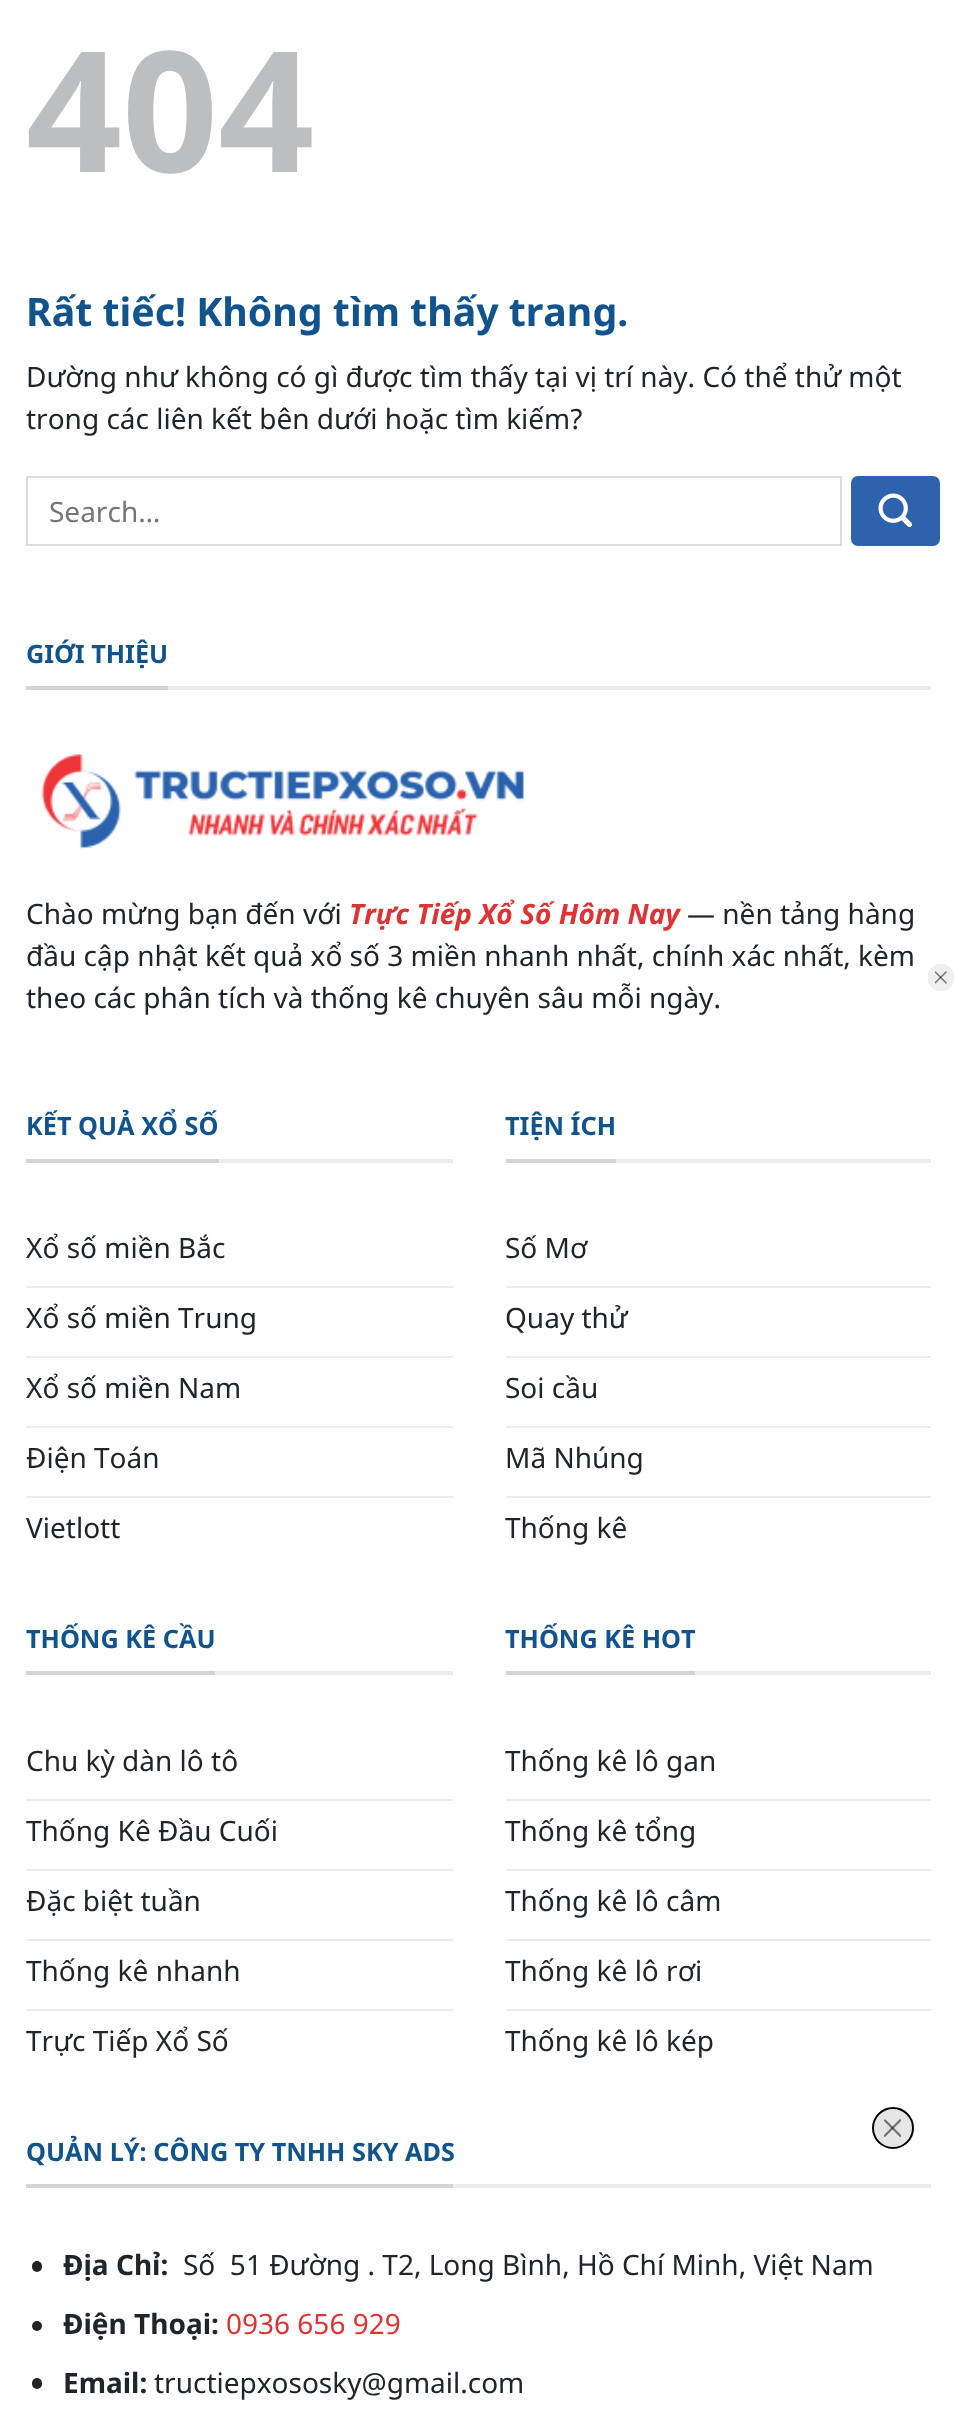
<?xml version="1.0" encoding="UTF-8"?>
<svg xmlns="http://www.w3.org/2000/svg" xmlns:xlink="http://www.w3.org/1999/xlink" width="957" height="2430">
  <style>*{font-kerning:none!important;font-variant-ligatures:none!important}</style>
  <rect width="100%" height="100%" fill="#ffffff" />
  <rect x="27" y="477" width="814" height="68" fill="none" stroke="#dddddd" stroke-width="2" />
  <rect x="851" y="476" width="89" height="70" rx="7" fill="#2c63ac" />
  <image x="878" y="493" width="35" height="35" xlink:href="image1.png" />
  <rect x="168" y="686" width="763" height="4" fill="#ececec" />
  <rect x="26" y="686" width="142" height="4" fill="#d4d4d4" />
  <image x="41" y="754" width="484" height="96" xlink:href="image2.png" />
  <rect x="219" y="1159" width="234" height="4" fill="#ececec" />
  <rect x="26" y="1159" width="193" height="4" fill="#d4d4d4" />
  <rect x="26" y="1286" width="427" height="2" fill="#ececec" />
  <rect x="26" y="1356" width="427" height="2" fill="#ececec" />
  <rect x="26" y="1426" width="427" height="2" fill="#ececec" />
  <rect x="26" y="1496" width="427" height="2" fill="#ececec" />
  <rect x="616" y="1159" width="315" height="4" fill="#ececec" />
  <rect x="506" y="1159" width="110" height="4" fill="#d4d4d4" />
  <rect x="506" y="1286" width="425" height="2" fill="#ececec" />
  <rect x="506" y="1356" width="425" height="2" fill="#ececec" />
  <rect x="506" y="1426" width="425" height="2" fill="#ececec" />
  <rect x="506" y="1496" width="425" height="2" fill="#ececec" />
  <rect x="215" y="1671" width="238" height="4" fill="#ececec" />
  <rect x="26" y="1671" width="189" height="4" fill="#d4d4d4" />
  <rect x="26" y="1799" width="427" height="2" fill="#ececec" />
  <rect x="26" y="1869" width="427" height="2" fill="#ececec" />
  <rect x="26" y="1939" width="427" height="2" fill="#ececec" />
  <rect x="26" y="2009" width="427" height="2" fill="#ececec" />
  <rect x="695" y="1671" width="236" height="4" fill="#ececec" />
  <rect x="506" y="1671" width="189" height="4" fill="#d4d4d4" />
  <rect x="506" y="1799" width="425" height="2" fill="#ececec" />
  <rect x="506" y="1869" width="425" height="2" fill="#ececec" />
  <rect x="506" y="1939" width="425" height="2" fill="#ececec" />
  <rect x="506" y="2009" width="425" height="2" fill="#ececec" />
  <rect x="453" y="2184" width="478" height="4" fill="#ececec" />
  <rect x="26" y="2184" width="427" height="4" fill="#d4d4d4" />
  <rect x="32" y="2261" width="10" height="11" rx="5" fill="#212529" />
  <circle cx="37" cy="2326" r="5" fill="#212529" />
  <rect x="32" y="2378" width="10" height="11" rx="5" fill="#212529" />
  <rect x="930.5" y="966.5" width="21" height="22" rx="10.5" fill="none" stroke="#efefef" stroke-width="5" />
  <rect x="930.5" y="966.5" width="21" height="22" rx="10.5" fill="none" stroke="#efefef" stroke-width="5" />
  <rect x="928" y="964" width="26" height="27" rx="13" fill="#efefef" />
  <image x="935" y="971" width="12" height="13" xlink:href="image3.png" />
  <circle cx="893" cy="2128" r="20" fill="#e6e6e6" stroke="#000000" stroke-width="2" />
  <image x="884" y="2119" width="17" height="18" xlink:href="image4.png" />
  <text x="26" y="172" style="font-family: Noto Sans; font-size: 168px; font-weight: bold; fill: #bcbebf">404</text>
  <text x="26" y="326" style="font-family: Noto Sans; font-size: 39.25px; font-weight: bold; fill: #11538c">Rất tiếc! Không tìm thấy trang.</text>
  <text x="26" y="387" style="font-family: Noto Sans; font-size: 28px; fill: #212529">Dường như không có gì được tìm thấy tại vị trí này. Có thể thử một</text>
  <text x="26" y="429" style="font-family: Noto Sans; font-size: 28px; fill: #212529">trong các liên kết bên dưới hoặc tìm kiếm?</text>
  <text x="49" y="522" style="font-family: Noto Sans; font-size: 28px; fill: #757575">Search…</text>
  <text x="26" y="663" style="font-family: Noto Sans; font-size: 25.25px; font-weight: bold; fill: #11538c">GIỚI THIỆU</text>
  <text x="26" y="924" style="font-family: Noto Sans; font-size: 28px; fill: #212529">Chào mừng bạn đến với</text>
  <text x="349" y="924" style="font-family: Noto Sans; font-size: 28px; font-weight: bold; font-style: italic; fill: #dd3333">Trực Tiếp Xổ Số Hôm Nay</text>
  <text x="687" y="924" style="font-family: Noto Sans; font-size: 28px; fill: #212529">— nền tảng hàng</text>
  <text x="26" y="966" style="font-family: Noto Sans; font-size: 28px; fill: #212529">đầu cập nhật kết quả xổ số 3 miền nhanh nhất, chính xác nhất, kèm</text>
  <text x="26" y="1008" style="font-family: Noto Sans; font-size: 28px; fill: #212529">theo các phân tích và thống kê chuyên sâu mỗi ngày.</text>
  <text x="26" y="1135" style="font-family: Noto Sans; font-size: 25.25px; font-weight: bold; fill: #11538c">KẾT QUẢ XỔ SỐ</text>
  <text x="26" y="1258" style="font-family: Noto Sans; font-size: 28px; fill: #212529">Xổ số miền Bắc</text>
  <text x="26" y="1328" style="font-family: Noto Sans; font-size: 28px; fill: #212529">Xổ số miền Trung</text>
  <text x="26" y="1398" style="font-family: Noto Sans; font-size: 28px; fill: #212529">Xổ số miền Nam</text>
  <text x="26" y="1468" style="font-family: Noto Sans; font-size: 28px; fill: #212529">Điện Toán</text>
  <text x="26" y="1538" style="font-family: Noto Sans; font-size: 28px; fill: #212529">Vietlott</text>
  <text x="505" y="1135" style="font-family: Noto Sans; font-size: 25.25px; font-weight: bold; fill: #11538c">TIỆN ÍCH</text>
  <text x="505" y="1258" style="font-family: Noto Sans; font-size: 28px; fill: #212529">Số Mơ</text>
  <text x="505" y="1328" style="font-family: Noto Sans; font-size: 28px; fill: #212529">Quay thử</text>
  <text x="505" y="1398" style="font-family: Noto Sans; font-size: 28px; fill: #212529">Soi cầu</text>
  <text x="505" y="1468" style="font-family: Noto Sans; font-size: 28px; fill: #212529">Mã Nhúng</text>
  <text x="505" y="1538" style="font-family: Noto Sans; font-size: 28px; fill: #212529">Thống kê</text>
  <text x="26" y="1648" style="font-family: Noto Sans; font-size: 25.25px; font-weight: bold; fill: #11538c">THỐNG KÊ CẦU</text>
  <text x="26" y="1771" style="font-family: Noto Sans; font-size: 28px; fill: #212529">Chu kỳ dàn lô tô</text>
  <text x="26" y="1841" style="font-family: Noto Sans; font-size: 28px; fill: #212529">Thống Kê Đầu Cuối</text>
  <text x="26" y="1911" style="font-family: Noto Sans; font-size: 28px; fill: #212529">Đặc biệt tuần</text>
  <text x="26" y="1981" style="font-family: Noto Sans; font-size: 28px; fill: #212529">Thống kê nhanh</text>
  <text x="26" y="2051" style="font-family: Noto Sans; font-size: 28px; fill: #212529">Trực Tiếp Xổ Số</text>
  <text x="505" y="1648" style="font-family: Noto Sans; font-size: 25.25px; font-weight: bold; fill: #11538c">THỐNG KÊ HOT</text>
  <text x="505" y="1771" style="font-family: Noto Sans; font-size: 28px; fill: #212529">Thống kê lô gan</text>
  <text x="505" y="1841" style="font-family: Noto Sans; font-size: 28px; fill: #212529">Thống kê tổng</text>
  <text x="505" y="1911" style="font-family: Noto Sans; font-size: 28px; fill: #212529">Thống kê lô câm</text>
  <text x="505" y="1981" style="font-family: Noto Sans; font-size: 28px; fill: #212529">Thống kê lô rơi</text>
  <text x="505" y="2051" style="font-family: Noto Sans; font-size: 28px; fill: #212529">Thống kê lô kép</text>
  <text x="26" y="2161" style="font-family: Noto Sans; font-size: 25.25px; font-weight: bold; fill: #11538c">QUẢN LÝ: CÔNG TY TNHH SKY ADS</text>
  <text x="63" y="2275" style="font-family: Noto Sans; font-size: 28px; font-weight: bold; fill: #212529">Địa Chỉ:</text>
  <text x="183" y="2275" style="font-family: Noto Sans; font-size: 28px; fill: #212529" xml:space="preserve">Số  51 Đường . T2, Long Bình, Hồ Chí Minh, Việt Nam</text>
  <text x="63" y="2334" style="font-family: Noto Sans; font-size: 28px; font-weight: bold; fill: #212529">Điện Thoại:</text>
  <text x="226" y="2334" style="font-family: Noto Sans; font-size: 28px; fill: #dd3333">0936 656 929</text>
  <text x="63" y="2393" style="font-family: Noto Sans; font-size: 28px; font-weight: bold; fill: #212529">Email:</text>
  <text x="154" y="2393" style="font-family: Noto Sans; font-size: 28px; fill: #212529">tructiepxososky@gmail.com</text>
</svg>
